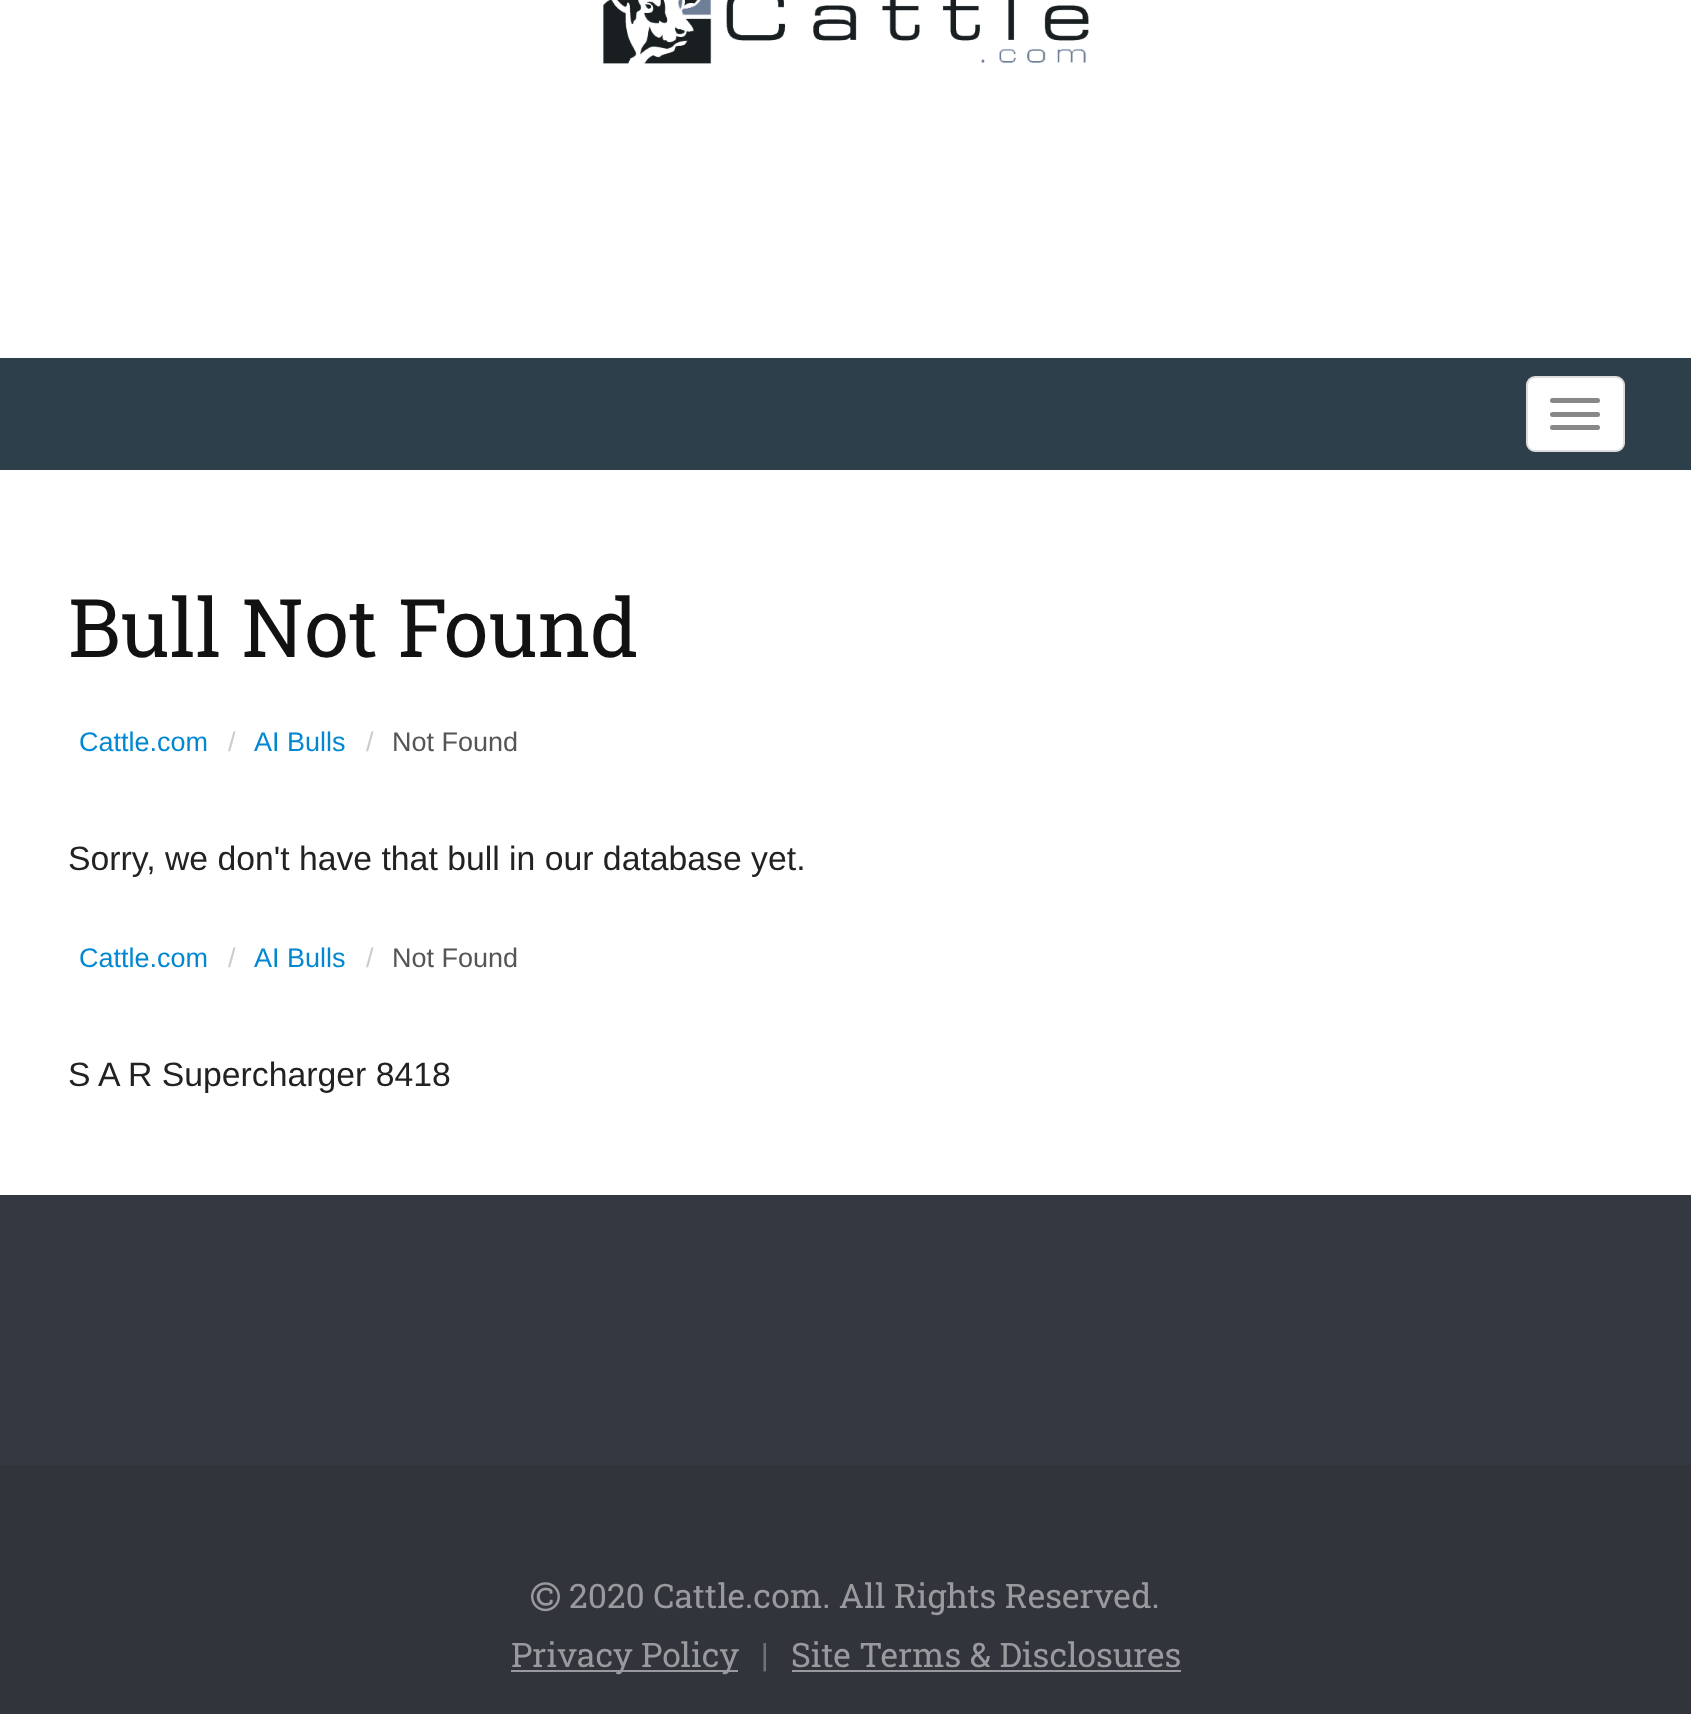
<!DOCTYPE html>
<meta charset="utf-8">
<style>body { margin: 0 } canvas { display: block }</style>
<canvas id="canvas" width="1691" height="1714"></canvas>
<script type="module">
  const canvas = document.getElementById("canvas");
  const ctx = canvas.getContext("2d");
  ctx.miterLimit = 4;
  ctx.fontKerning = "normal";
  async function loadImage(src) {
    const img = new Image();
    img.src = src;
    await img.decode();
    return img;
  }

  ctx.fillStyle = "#ffffff";
  ctx.fillRect(0, 0, 1691, 1714);
  ctx.drawImage(await loadImage("img1.png"), 603, 0, 486, 64);
  ctx.fillStyle = "#2d3f4b";
  ctx.fillRect(0, 358, 1691, 112);
  ctx.fillStyle = "#ffffff";
  ctx.beginPath();
  ctx.roundRect(1527, 377, 97, 74, 8);
  ctx.fill();
  ctx.strokeStyle = "#dddddd";
  ctx.lineWidth = 2;
  ctx.stroke();
  ctx.fillStyle = "#888888";
  ctx.beginPath();
  ctx.roundRect(1550, 398, 50, 5, 2.5);
  ctx.fill();
  ctx.beginPath();
  ctx.roundRect(1550, 412, 50, 5, 2.5);
  ctx.fill();
  ctx.beginPath();
  ctx.roundRect(1550, 425, 50, 5, 2.5);
  ctx.fill();
  ctx.font = "81px Roboto Slab";
  ctx.fillStyle = "#121212";
  ctx.fillText("Bull Not Found", 68, 657);
  ctx.font = "27px Liberation Sans";
  ctx.fillStyle = "#0288d1";
  ctx.fillText("Cattle.com", 79, 751);
  ctx.fillStyle = "#cccccc";
  ctx.fillText("/", 228, 751);
  ctx.fillStyle = "#0288d1";
  ctx.fillText("AI Bulls", 254, 751);
  ctx.fillStyle = "#cccccc";
  ctx.fillText("/", 366, 751);
  ctx.fillStyle = "#555555";
  ctx.fillText("Not Found", 392, 751);
  ctx.font = "33.75px Liberation Sans";
  ctx.fillStyle = "#222222";
  ctx.fillText("Sorry, we don't have that bull in our database yet.", 68, 870);
  ctx.font = "27px Liberation Sans";
  ctx.fillStyle = "#0288d1";
  ctx.fillText("Cattle.com", 79, 967);
  ctx.fillStyle = "#cccccc";
  ctx.fillText("/", 228, 967);
  ctx.fillStyle = "#0288d1";
  ctx.fillText("AI Bulls", 254, 967);
  ctx.fillStyle = "#cccccc";
  ctx.fillText("/", 366, 967);
  ctx.fillStyle = "#555555";
  ctx.fillText("Not Found", 392, 967);
  ctx.font = "33.75px Liberation Sans";
  ctx.fillStyle = "#222222";
  ctx.fillText("S A R Supercharger 8418", 68, 1086);
  ctx.fillStyle = "#343840";
  ctx.fillRect(0, 1195, 1691, 270);
  ctx.fillStyle = "#31343b";
  ctx.fillRect(0, 1465, 1691, 249);
  ctx.drawImage(await loadImage("img2.png"), 531, 1582, 29, 30);
  ctx.font = "33.75px Roboto Slab";
  ctx.fillStyle = "#989a9d";
  ctx.fillText("2020 Cattle.com. All Rights Reserved.", 569, 1608);
  ctx.fillRect(511, 1670, 227, 2);
  ctx.fillText("Privacy Policy", 511, 1667);
  ctx.fillStyle = "#6f7176";
  ctx.fillText("|", 761, 1667);
  ctx.fillStyle = "#989a9d";
  ctx.fillText("Site Terms & Disclosures", 791, 1667);
  ctx.fillRect(792, 1670, 389, 2);
</script>
